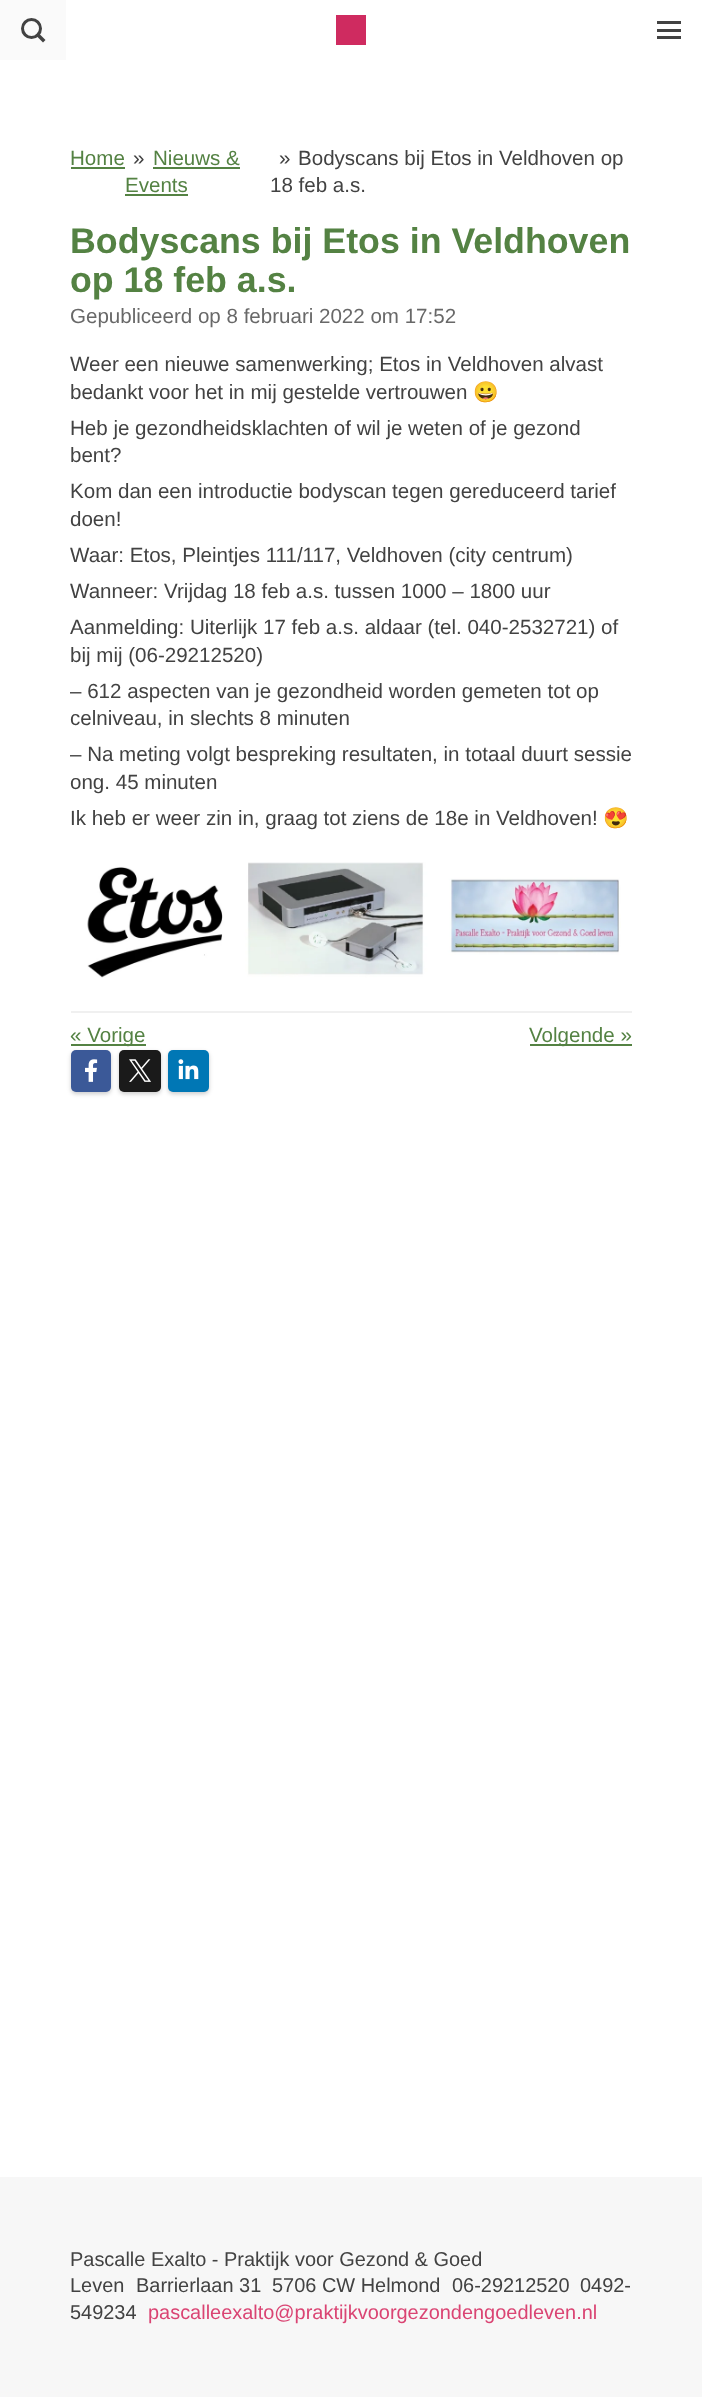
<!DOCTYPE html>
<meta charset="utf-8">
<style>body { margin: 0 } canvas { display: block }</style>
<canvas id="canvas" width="702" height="2397"></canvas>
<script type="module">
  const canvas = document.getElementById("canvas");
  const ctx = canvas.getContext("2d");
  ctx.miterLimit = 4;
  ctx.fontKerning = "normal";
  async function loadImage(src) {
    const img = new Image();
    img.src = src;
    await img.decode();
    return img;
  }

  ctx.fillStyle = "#ffffff";
  ctx.fillRect(0, 0, 702, 2397);
  ctx.fillStyle = "#fafafa";
  ctx.fillRect(0, 0, 66, 60);
  ctx.beginPath();
  ctx.arc(31.5, 28.5, 9, 0, Math.PI * 2);
  ctx.strokeStyle = "#424242";
  ctx.lineWidth = 3;
  ctx.stroke();
  ctx.fillStyle = "#424242";
  ctx.beginPath();
  ctx.moveTo(38, 32.5);
  ctx.lineTo(45.5, 40);
  ctx.lineTo(43, 42.5);
  ctx.lineTo(35.5, 35);
  ctx.closePath();
  ctx.fill();
  ctx.fillStyle = "#cf2b60";
  ctx.fillRect(336, 15, 30, 30);
  ctx.fillStyle = "#424242";
  ctx.fillRect(657, 29, 24, 3);
  ctx.fillRect(657, 21, 24, 3);
  ctx.fillRect(657, 36, 24, 3);
  ctx.font = "20.55px Liberation Sans";
  ctx.fillStyle = "#548243";
  ctx.fillText("Home", 70, 165);
  ctx.fillRect(71, 167, 54, 2);
  ctx.fillStyle = "#424242";
  ctx.fillText("»", 133, 165);
  ctx.fillStyle = "#548243";
  ctx.fillText("Nieuws &", 153, 165);
  ctx.fillRect(153, 167, 87, 2);
  ctx.fillText("Events", 125, 192);
  ctx.fillRect(125, 194, 63, 2);
  ctx.fillStyle = "#424242";
  ctx.fillText("»", 279, 165);
  ctx.fillText("Bodyscans bij Etos in Veldhoven op", 298, 165);
  ctx.fillText("18 feb a.s.", 270, 192);
  ctx.font = "bold 35.75px Liberation Sans";
  ctx.fillStyle = "#548243";
  ctx.fillText("Bodyscans bij Etos in Veldhoven", 70, 253);
  ctx.fillText("op 18 feb a.s.", 70, 292);
  ctx.font = "20.55px Liberation Sans";
  ctx.fillStyle = "#686868";
  ctx.fillText("Gepubliceerd op 8 februari 2022 om 17:52", 70, 323);
  ctx.fillStyle = "#424242";
  ctx.fillText("Weer een nieuwe samenwerking; Etos in Veldhoven alvast", 70, 371);
  ctx.fillText("bedankt voor het in mij gestelde vertrouwen", 70, 399);
  ctx.font = "20.55px Noto Color Emoji";
  ctx.fillText("😀", 473, 399);
  ctx.font = "20.55px Liberation Sans";
  ctx.fillText("Heb je gezondheidsklachten of wil je weten of je gezond", 70, 435);
  ctx.fillText("bent?", 70, 462);
  ctx.fillText("Kom dan een introductie bodyscan tegen gereduceerd tarief", 70, 498);
  ctx.fillText("doen!", 70, 526);
  ctx.fillText("Waar: Etos, Pleintjes 111/117, Veldhoven (city centrum)", 70, 562);
  ctx.fillText("Wanneer: Vrijdag 18 feb a.s. tussen 1000 – 1800 uur", 70, 598);
  ctx.fillText("Aanmelding: Uiterlijk 17 feb a.s. aldaar (tel. 040-2532721) of", 70, 634);
  ctx.fillText("bij mij (06-29212520)", 70, 662);
  ctx.fillText("– 612 aspecten van je gezondheid worden gemeten tot op", 70, 698);
  ctx.fillText("celniveau, in slechts 8 minuten", 70, 725);
  ctx.fillText("– Na meting volgt bespreking resultaten, in totaal duurt sessie", 70, 761);
  ctx.fillText("ong. 45 minuten", 70, 789);
  ctx.fillText("Ik heb er weer zin in, graag tot ziens de 18e in Veldhoven!", 70, 825);
  ctx.font = "20.55px Noto Color Emoji";
  ctx.fillText("😍", 603, 825);
  ctx.drawImage(await loadImage("img1.png"), 87, 862, 534, 116);
  ctx.fillStyle = "#f0f0f0";
  ctx.fillRect(71, 1011, 561, 2);
  ctx.fillStyle = "#548243";
  ctx.fillRect(71, 1044, 75, 2);
  ctx.font = "20.55px Liberation Sans";
  ctx.fillText("« Vorige", 70, 1042);
  ctx.fillRect(530, 1044, 102, 2);
  ctx.fillText("Volgende »", 529, 1042);
  ctx.fillStyle = "rgba(0, 0, 0, 0.2)";
  ctx.filter = "blur(2px)";
  ctx.beginPath();
  ctx.roundRect(71, 1052, 40, 42, 5);
  ctx.fill();
  ctx.filter = "none";
  ctx.fillStyle = "#3b5998";
  ctx.beginPath();
  ctx.roundRect(71, 1050, 40, 42, 5);
  ctx.fill();
  ctx.drawImage(await loadImage("img2.png"), 85, 1059, 13, 23);
  ctx.fillStyle = "rgba(0, 0, 0, 0.2)";
  ctx.filter = "blur(2px)";
  ctx.beginPath();
  ctx.roundRect(119, 1052, 42, 42, 5);
  ctx.fill();
  ctx.filter = "none";
  ctx.fillStyle = "#1a1a1a";
  ctx.beginPath();
  ctx.roundRect(119, 1050, 42, 42, 5);
  ctx.fill();
  ctx.drawImage(await loadImage("img3.png"), 129, 1059, 22, 23);
  ctx.fillStyle = "rgba(0, 0, 0, 0.2)";
  ctx.filter = "blur(2px)";
  ctx.beginPath();
  ctx.roundRect(168, 1052, 41, 42, 5);
  ctx.fill();
  ctx.filter = "none";
  ctx.fillStyle = "#0077b5";
  ctx.beginPath();
  ctx.roundRect(168, 1050, 41, 42, 5);
  ctx.fill();
  ctx.drawImage(await loadImage("img4.png"), 178, 1059, 21, 21);
  ctx.fillStyle = "#f7f7f7";
  ctx.fillRect(0, 2177, 702, 220);
  ctx.font = "19.95px Liberation Sans";
  ctx.fillStyle = "#424242";
  ctx.fillText("Pascalle Exalto - Praktijk voor Gezond & Goed", 70, 2266);
  ctx.fillText("Leven", 70, 2292);
  ctx.fillText("Barrierlaan 31", 136, 2292);
  ctx.fillText("5706 CW Helmond", 272, 2292);
  ctx.fillText("06-29212520", 452, 2292);
  ctx.fillText("0492-", 580, 2292);
  ctx.fillText("549234", 70, 2319);
  ctx.fillStyle = "#da4473";
  ctx.fillText("pascalleexalto@praktijkvoorgezondengoedleven.nl", 148, 2319);
</script>
